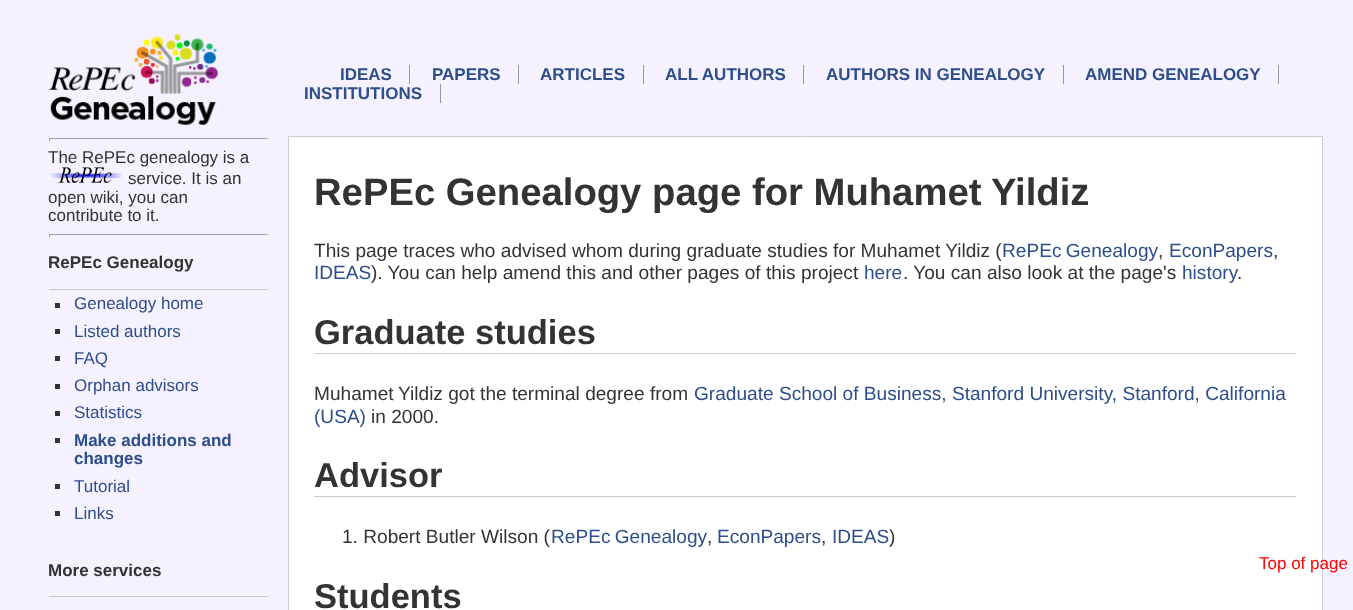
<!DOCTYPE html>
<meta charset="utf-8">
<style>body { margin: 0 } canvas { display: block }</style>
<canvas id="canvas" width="1353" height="610"></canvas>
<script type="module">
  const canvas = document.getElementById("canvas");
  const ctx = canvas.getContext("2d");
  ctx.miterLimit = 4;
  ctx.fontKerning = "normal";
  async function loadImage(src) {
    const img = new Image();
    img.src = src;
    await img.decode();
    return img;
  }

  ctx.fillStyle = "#f6f1fe";
  ctx.fillRect(0, 0, 1353, 610);
  ctx.drawImage(await loadImage("img1.png"), 48, 34, 170, 91);
  ctx.fillStyle = "#9f9f9f";
  ctx.fillRect(49, 138, 219, 1);
  ctx.fillStyle = "#eeeeee";
  ctx.fillRect(266, 138, 1, 3);
  ctx.fillRect(49, 139, 219, 1);
  ctx.fillStyle = "#9f9f9f";
  ctx.fillRect(49, 138, 1, 3);
  ctx.font = "17px Liberation Sans";
  ctx.fillStyle = "#333333";
  ctx.fillText("The RePEc genealogy is a", 48, 163);
  ctx.drawImage(await loadImage("img2.png"), 50, 167, 72, 16);
  ctx.fillText("service. It is an", 128, 184);
  ctx.fillText("open wiki, you can", 48, 203);
  ctx.fillText("contribute to it.", 48, 221);
  ctx.fillStyle = "#9f9f9f";
  ctx.fillRect(49, 234, 219, 1);
  ctx.fillStyle = "#eeeeee";
  ctx.fillRect(266, 234, 1, 3);
  ctx.fillRect(49, 235, 219, 1);
  ctx.fillStyle = "#9f9f9f";
  ctx.fillRect(49, 234, 1, 3);
  ctx.font = "bold 17px Liberation Sans";
  ctx.fillStyle = "#333333";
  ctx.fillText("RePEc Genealogy", 48, 268);
  ctx.fillStyle = "#cccccc";
  ctx.fillRect(49, 289, 219, 1);
  ctx.fillStyle = "#333333";
  ctx.fillRect(55, 303, 5, 5);
  ctx.font = "17px Liberation Sans";
  ctx.fillStyle = "#2d4e8b";
  ctx.fillText("Genealogy home", 74, 309);
  ctx.fillStyle = "#333333";
  ctx.fillRect(55, 329, 5, 5);
  ctx.fillStyle = "#2d4e8b";
  ctx.fillText("Listed authors", 74, 337);
  ctx.fillStyle = "#333333";
  ctx.fillRect(55, 356, 5, 5);
  ctx.fillStyle = "#2d4e8b";
  ctx.fillText("FAQ", 74, 364);
  ctx.fillStyle = "#333333";
  ctx.fillRect(55, 384, 5, 5);
  ctx.fillStyle = "#2d4e8b";
  ctx.fillText("Orphan advisors", 74, 391);
  ctx.fillStyle = "#333333";
  ctx.fillRect(55, 411, 5, 5);
  ctx.fillStyle = "#2d4e8b";
  ctx.fillText("Statistics", 74, 418);
  ctx.fillStyle = "#333333";
  ctx.fillRect(55, 438, 5, 5);
  ctx.font = "bold 17px Liberation Sans";
  ctx.fillStyle = "#2d4e8b";
  ctx.fillText("Make additions and", 74, 446);
  ctx.fillText("changes", 74, 464);
  ctx.fillStyle = "#333333";
  ctx.fillRect(55, 484, 5, 5);
  ctx.font = "17px Liberation Sans";
  ctx.fillStyle = "#2d4e8b";
  ctx.fillText("Tutorial", 74, 492);
  ctx.fillStyle = "#333333";
  ctx.fillRect(55, 511, 5, 5);
  ctx.fillStyle = "#2d4e8b";
  ctx.fillText("Links", 74, 519);
  ctx.font = "bold 17px Liberation Sans";
  ctx.fillStyle = "#333333";
  ctx.fillText("More services", 48, 576);
  ctx.fillStyle = "#cccccc";
  ctx.fillRect(49, 596, 219, 1);
  ctx.fillStyle = "#999999";
  ctx.fillRect(409, 65, 1, 19);
  ctx.fillStyle = "#2d4e8b";
  ctx.fillText("IDEAS", 340, 80);
  ctx.fillStyle = "#999999";
  ctx.fillRect(518, 65, 1, 19);
  ctx.fillStyle = "#2d4e8b";
  ctx.fillText("PAPERS", 432, 80);
  ctx.fillStyle = "#999999";
  ctx.fillRect(643, 65, 1, 19);
  ctx.fillStyle = "#2d4e8b";
  ctx.fillText("ARTICLES", 540, 80);
  ctx.fillStyle = "#999999";
  ctx.fillRect(803, 65, 1, 19);
  ctx.fillStyle = "#2d4e8b";
  ctx.fillText("ALL AUTHORS", 665, 80);
  ctx.fillStyle = "#999999";
  ctx.fillRect(1063, 65, 1, 19);
  ctx.fillStyle = "#2d4e8b";
  ctx.fillText("AUTHORS IN GENEALOGY", 826, 80);
  ctx.fillStyle = "#999999";
  ctx.fillRect(1278, 65, 1, 19);
  ctx.fillStyle = "#2d4e8b";
  ctx.fillText("AMEND GENEALOGY", 1085, 80);
  ctx.fillStyle = "#999999";
  ctx.fillRect(440, 84, 1, 19);
  ctx.fillStyle = "#2d4e8b";
  ctx.fillText("INSTITUTIONS", 304, 99);
  ctx.fillStyle = "#ffffff";
  ctx.beginPath();
  ctx.rect(288.5, 136.5, 1034, 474);
  ctx.fill();
  ctx.strokeStyle = "#cccccc";
  ctx.stroke();
  ctx.font = "17px Liberation Sans";
  ctx.fillStyle = "#ff0000";
  ctx.fillText("Top of page", 1259, 569);
  ctx.font = "bold 38.25px Liberation Sans";
  ctx.fillStyle = "#333333";
  ctx.fillText("RePEc Genealogy page for Muhamet", 314, 205);
  ctx.fillText("Yildiz", 991, 205);
  ctx.font = "19.1px Liberation Sans";
  ctx.fillText("This page traces who advised whom during graduate studies for Muhamet Yildiz (", 314, 257);
  ctx.wordSpacing = "-1px";
  ctx.fillStyle = "#2d4e8b";
  ctx.fillText("RePEc Genealogy", 1002, 257);
  ctx.wordSpacing = "0px";
  ctx.fillStyle = "#333333";
  ctx.fillText(",", 1158, 257);
  ctx.fillStyle = "#2d4e8b";
  ctx.fillText("EconPapers", 1169, 257);
  ctx.fillStyle = "#333333";
  ctx.fillText(",", 1273, 257);
  ctx.fillStyle = "#2d4e8b";
  ctx.fillText("IDEAS", 314, 279);
  ctx.fillStyle = "#333333";
  ctx.fillText("). You can help amend this and other pages of this project", 371, 279);
  ctx.fillStyle = "#2d4e8b";
  ctx.fillText("here", 864, 279);
  ctx.fillStyle = "#333333";
  ctx.fillText(". You can also look at the page's", 903, 279);
  ctx.fillStyle = "#2d4e8b";
  ctx.fillText("history", 1182, 279);
  ctx.fillStyle = "#333333";
  ctx.fillText(".", 1237, 279);
  ctx.fillStyle = "#cccccc";
  ctx.fillRect(314, 353, 982, 1);
  ctx.font = "bold 34.5px Liberation Sans";
  ctx.fillStyle = "#333333";
  ctx.fillText("Graduate studies", 314, 344);
  ctx.font = "19.1px Liberation Sans";
  ctx.fillText("Muhamet", 314, 400);
  ctx.fillText("Yildiz got the terminal degree from", 398, 400);
  ctx.fillStyle = "#2d4e8b";
  ctx.fillText("Graduate School of Business, Stanford University, Stanford, California", 694, 400);
  ctx.fillText("(USA)", 314, 423);
  ctx.fillStyle = "#333333";
  ctx.fillText("in 2000.", 371, 423);
  ctx.fillStyle = "#cccccc";
  ctx.fillRect(314, 496, 982, 1);
  ctx.font = "bold 34.5px Liberation Sans";
  ctx.fillStyle = "#333333";
  ctx.fillText("Advisor", 314, 487);
  ctx.font = "19.1px Liberation Sans";
  ctx.fillText("1. Robert Butler Wilson (", 342, 543);
  ctx.wordSpacing = "-1px";
  ctx.fillStyle = "#2d4e8b";
  ctx.fillText("RePEc Genealogy", 551, 543);
  ctx.wordSpacing = "0px";
  ctx.fillStyle = "#333333";
  ctx.fillText(",", 707, 543);
  ctx.fillStyle = "#2d4e8b";
  ctx.fillText("EconPapers", 717, 543);
  ctx.fillStyle = "#333333";
  ctx.fillText(",", 821, 543);
  ctx.fillStyle = "#2d4e8b";
  ctx.fillText("IDEAS", 832, 543);
  ctx.fillStyle = "#333333";
  ctx.fillText(")", 889, 543);
  ctx.font = "bold 34.5px Liberation Sans";
  ctx.fillText("Students", 314, 608);
</script>
